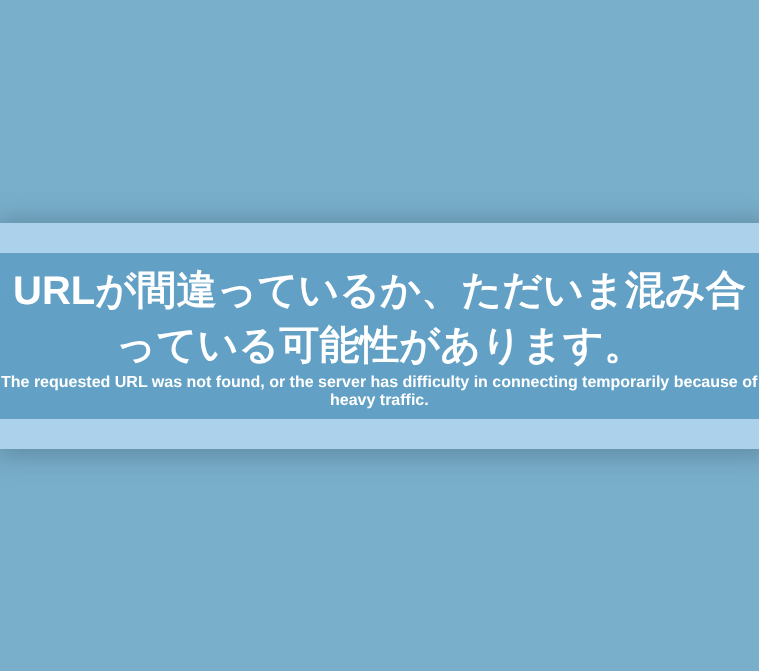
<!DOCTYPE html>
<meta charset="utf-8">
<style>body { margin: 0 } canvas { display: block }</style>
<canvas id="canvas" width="759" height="671"></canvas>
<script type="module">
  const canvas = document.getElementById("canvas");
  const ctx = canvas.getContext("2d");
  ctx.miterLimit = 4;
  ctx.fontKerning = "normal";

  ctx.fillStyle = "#79afcb";
  ctx.fillRect(0, 0, 759, 671);
  ctx.fillStyle = "#628ea8";
  ctx.filter = "blur(12px)";
  ctx.beginPath();
  ctx.rect(-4, 218, 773, 240);
  ctx.fill();
  ctx.filter = "none";
  ctx.fillStyle = "#abd2ea";
  ctx.fillRect(0, 223, 759, 226);
  ctx.fillStyle = "#62a1c5";
  ctx.fillRect(0, 253, 759, 166);
  ctx.font = "bold 40px Liberation Sans";
  ctx.fillStyle = "#ffffff";
  ctx.fillText("URL", 13, 304);
  ctx.font = "bold 40px WenQuanYi Zen Hei";
  ctx.fillText("が間違っているか、ただいま混み合", 95, 304);
  ctx.fillText("っている可能性があります。", 115, 359);
  ctx.font = "bold 16px Liberation Sans";
  ctx.fillText("The requested URL was not found, or the server has difficulty in connecting temporarily because of", 1, 387);
  ctx.fillText("heavy traffic.", 330, 405);
</script>
